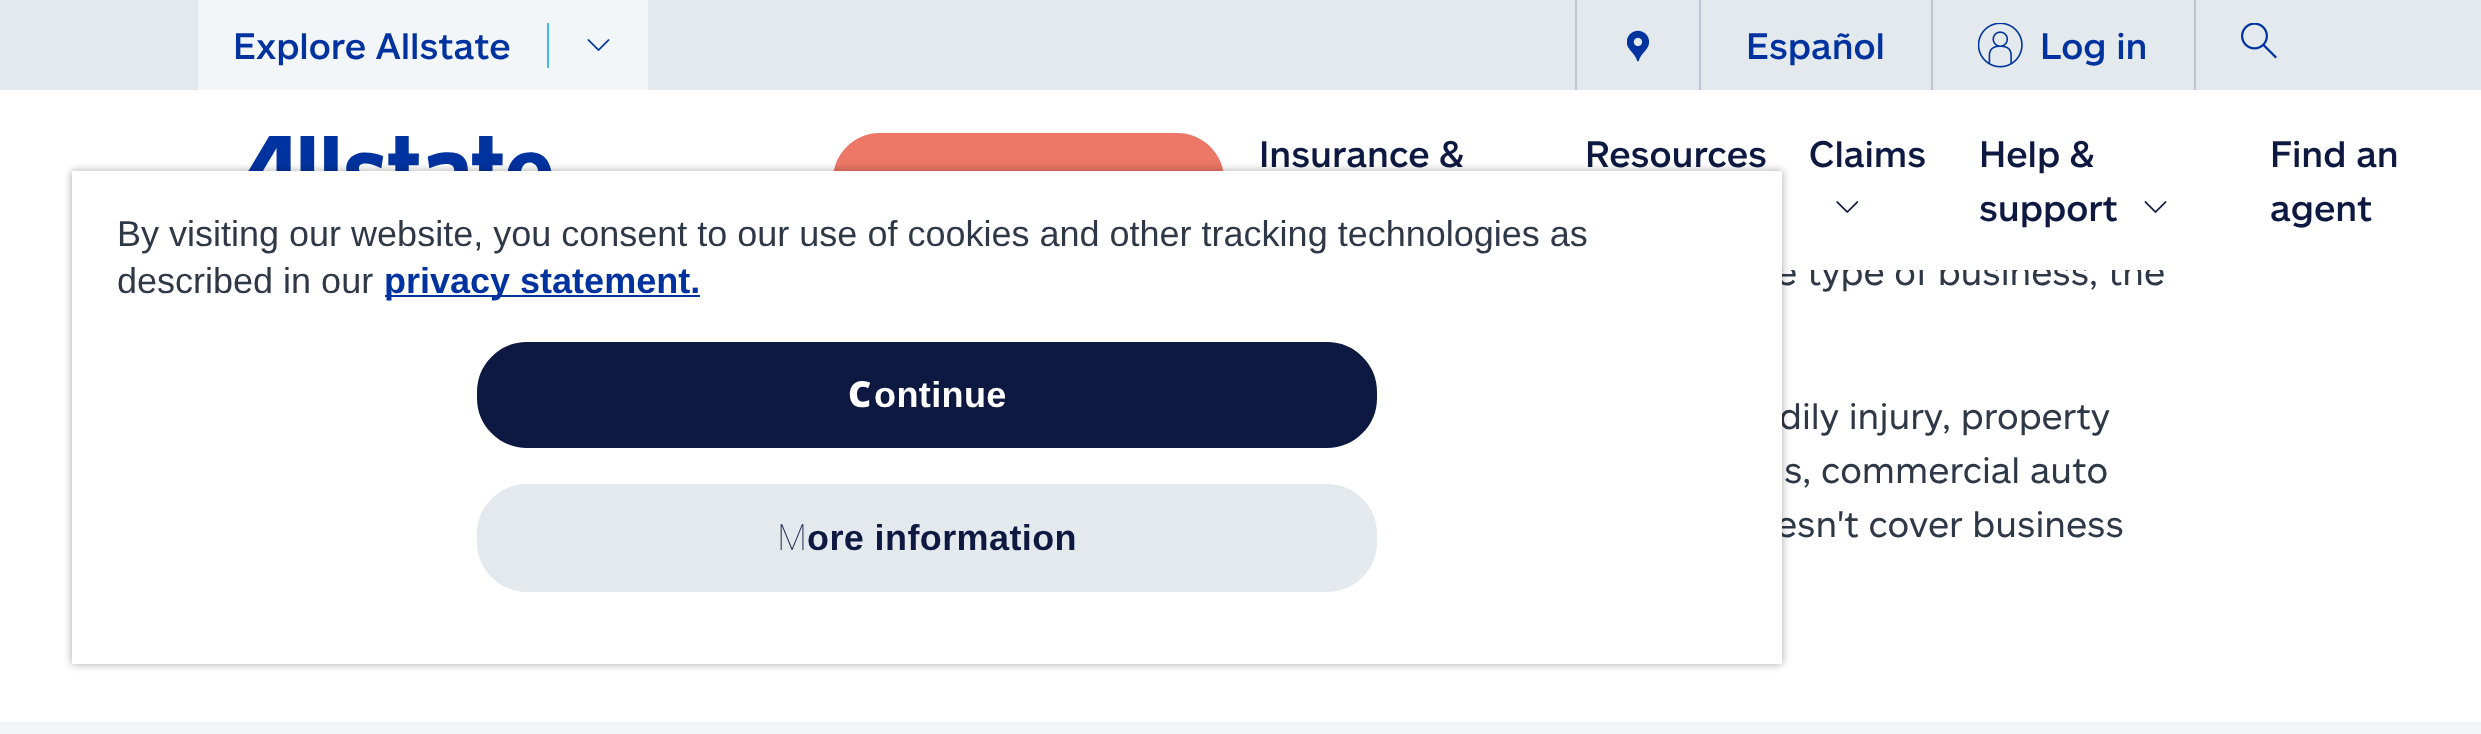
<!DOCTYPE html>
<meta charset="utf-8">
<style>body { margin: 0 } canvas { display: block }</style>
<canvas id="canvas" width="2481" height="734"></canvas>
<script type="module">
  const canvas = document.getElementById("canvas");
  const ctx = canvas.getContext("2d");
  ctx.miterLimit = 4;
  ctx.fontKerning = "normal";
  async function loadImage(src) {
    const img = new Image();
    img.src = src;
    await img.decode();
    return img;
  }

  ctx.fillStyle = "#ffffff";
  ctx.fillRect(0, 0, 2481, 734);
  ctx.fillStyle = "#e4e9ed";
  ctx.fillRect(0, 0, 2481, 90);
  ctx.fillStyle = "#f3f6f9";
  ctx.fillRect(198, 0, 450, 90);
  ctx.font = "500 36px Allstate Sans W";
  ctx.fillStyle = "#0033a0";
  ctx.fillText("Explore Allstate", 233, 59);
  ctx.fillStyle = "#45bce5";
  ctx.fillRect(547, 23, 2, 45);
  ctx.drawImage(await loadImage("img1.png"), 587, 39, 23, 12);
  ctx.fillStyle = "#bac6d3";
  ctx.fillRect(1575, 0, 2, 90);
  ctx.drawImage(await loadImage("img2.png"), 1627, 30, 22, 32);
  ctx.fillRect(1699, 0, 2, 90);
  ctx.fillStyle = "#0033a0";
  ctx.fillText("Español", 1746, 59);
  ctx.fillStyle = "#bac6d3";
  ctx.fillRect(1931, 0, 2, 90);
  ctx.drawImage(await loadImage("img3.png"), 1978, 23, 45, 45);
  ctx.fillStyle = "#0033a0";
  ctx.fillText("Log in", 2040, 59);
  ctx.fillStyle = "#bac6d3";
  ctx.fillRect(2194, 0, 2, 90);
  ctx.drawImage(await loadImage("img4.png"), 2241, 23, 36, 36);
  ctx.font = "36px Allstate Sans W";
  ctx.fillStyle = "#2f3847";
  ctx.fillText("e type of business, the", 1776, 285);
  ctx.fillStyle = "#ffffff";
  ctx.fillRect(1779, 258, 384, 12);
  ctx.drawImage(await loadImage("img5.png"), 248, 136, 304, 35);
  ctx.fillStyle = "#ed7766";
  ctx.beginPath();
  ctx.roundRect(834, 134, 389, 92, 46);
  ctx.fill();
  ctx.strokeStyle = "#ed7766";
  ctx.lineWidth = 2;
  ctx.stroke();
  ctx.font = "500 36px Allstate Sans W";
  ctx.fillStyle = "#0e1941";
  ctx.fillText("Insurance &", 1259, 167);
  ctx.fillText("Resources", 1585, 167);
  ctx.fillText("Claims", 1809, 167);
  ctx.drawImage(await loadImage("img6.png"), 1836, 201, 23, 12);
  ctx.fillText("Help &", 1979, 167);
  ctx.fillText("support", 1979, 221);
  ctx.drawImage(await loadImage("img7.png"), 2144, 201, 23, 12);
  ctx.fillText("Find an", 2270, 167);
  ctx.fillText("agent", 2270, 221);
  ctx.font = "36px Allstate Sans W";
  ctx.fillStyle = "#2f3847";
  ctx.fillText("dily injury, property", 1779, 429);
  ctx.fillText("s, commercial auto", 1784, 483);
  ctx.fillText("esn't cover business", 1776, 537);
  ctx.fillStyle = "#f3f6f9";
  ctx.fillRect(0, 722, 2481, 12);
  ctx.fillStyle = "rgba(0, 0, 0, 0.35)";
  ctx.filter = "blur(4.5px)";
  ctx.beginPath();
  ctx.rect(72, 171, 1710, 493);
  ctx.fill();
  ctx.filter = "none";
  ctx.fillStyle = "#ffffff";
  ctx.fillRect(72, 171, 1710, 493);
  ctx.font = "36px Liberation Sans";
  ctx.fillStyle = "#2f3847";
  ctx.fillText("By visiting our website, you consent to our use of cookies and other tracking technologies as", 117, 246);
  ctx.fillText("described in our", 117, 293);
  ctx.fillStyle = "#0033a0";
  ctx.fillRect(385, 295, 315, 2);
  ctx.font = "bold 36px Liberation Sans";
  ctx.fillText("privacy statement.", 384, 293);
  ctx.fillStyle = "#0e1941";
  ctx.beginPath();
  ctx.roundRect(478, 343, 898, 104, 49);
  ctx.fill();
  ctx.strokeStyle = "#0e1941";
  ctx.stroke();
  ctx.letterSpacing = "0.4px";
  ctx.font = "900 36px Noto Sans";
  ctx.fillStyle = "#ffffff";
  ctx.fillText("C", 848, 407);
  ctx.font = "bold 36px Liberation Sans";
  ctx.fillText("ontinue", 874, 407);
  ctx.fillStyle = "#e4e9ed";
  ctx.beginPath();
  ctx.roundRect(478, 485, 898, 106, 49);
  ctx.fill();
  ctx.strokeStyle = "#e4e9ed";
  ctx.stroke();
  ctx.font = "100 36px Noto Sans";
  ctx.fillStyle = "#0e1941";
  ctx.fillText("M", 777, 550);
  ctx.font = "bold 36px Liberation Sans";
  ctx.fillText("ore information", 807, 550);
</script>
